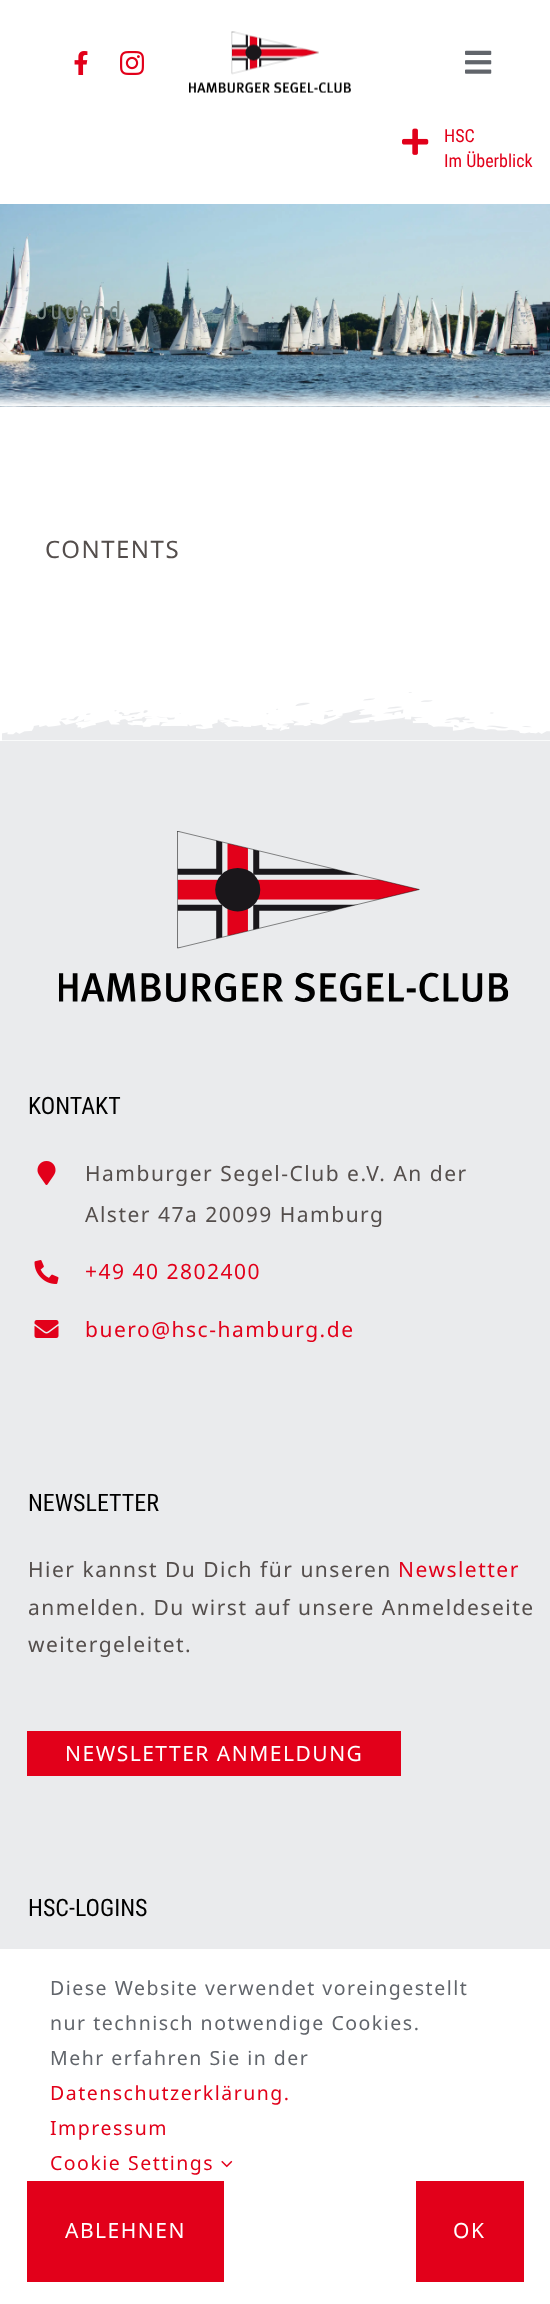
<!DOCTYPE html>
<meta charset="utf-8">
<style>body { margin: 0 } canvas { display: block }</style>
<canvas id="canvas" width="550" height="2304"></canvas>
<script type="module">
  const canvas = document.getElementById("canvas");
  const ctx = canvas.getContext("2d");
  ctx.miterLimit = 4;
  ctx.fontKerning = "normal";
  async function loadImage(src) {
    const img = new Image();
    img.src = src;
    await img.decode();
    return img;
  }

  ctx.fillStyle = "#ffffff";
  ctx.fillRect(0, 0, 550, 2304);
  ctx.drawImage(await loadImage("img1.png"), 74, 51, 14, 24);
  ctx.drawImage(await loadImage("img2.png"), 120, 51, 24, 24);
  ctx.drawImage(await loadImage("img3.png"), 189, 31, 162, 62);
  ctx.drawImage(await loadImage("img4.png"), 402, 128, 27, 27);
  ctx.font = "18px Roboto Condensed";
  ctx.fillStyle = "#e2001a";
  ctx.fillText("HSC", 444, 142);
  ctx.fillText("Im Überblick", 444, 167);
  ctx.drawImage(await loadImage("img5.png"), 465, 50, 27, 24);
  ctx.fillStyle = "#f0f1f2";
  ctx.fillRect(0, 406, 550, 1);
  ctx.drawImage(await loadImage("img6.png"), 0, 204, 550, 203);
  ctx.letterSpacing = "3px";
  ctx.font = "24px Roboto Condensed";
  ctx.fillStyle = "#788683";
  ctx.fillText("Jugend", 36, 319);
  ctx.letterSpacing = "1.5px";
  ctx.font = "24px Noto Sans";
  ctx.fillStyle = "#544e4c";
  ctx.fillText("CONTENTS", 45, 558);
  ctx.drawImage(await loadImage("img7.png"), 2, 692, 548, 49);
  ctx.fillStyle = "#eaebed";
  ctx.fillRect(0, 741, 550, 1208);
  ctx.drawImage(await loadImage("img8.png"), 59, 831, 450, 171);
  ctx.letterSpacing = "0px";
  ctx.font = "24px Roboto Condensed";
  ctx.fillStyle = "#000000";
  ctx.fillText("KONTAKT", 28, 1114);
  ctx.drawImage(await loadImage("img9.png"), 37, 1161, 19, 24);
  ctx.letterSpacing = "1.5px";
  ctx.font = "21px Noto Sans";
  ctx.fillStyle = "#544e4c";
  ctx.fillText("Hamburger Segel-Club e.V. An der", 85, 1181);
  ctx.fillText("Alster 47a 20099 Hamburg", 85, 1222);
  ctx.drawImage(await loadImage("img10.png"), 34, 1260, 25, 24);
  ctx.fillStyle = "#e2001a";
  ctx.fillText("+49 40 2802400", 85, 1279);
  ctx.drawImage(await loadImage("img11.png"), 34, 1320, 25, 18);
  ctx.fillText("buero@hsc-hamburg.de", 85, 1337);
  ctx.letterSpacing = "0px";
  ctx.font = "24px Roboto Condensed";
  ctx.fillStyle = "#000000";
  ctx.fillText("NEWSLETTER", 28, 1511);
  ctx.letterSpacing = "1.5px";
  ctx.font = "21px Noto Sans";
  ctx.fillStyle = "#544e4c";
  ctx.fillText("Hier kannst Du Dich für unseren", 28, 1577);
  ctx.fillStyle = "#e2001a";
  ctx.fillText("Newsletter", 398, 1577);
  ctx.fillStyle = "#544e4c";
  ctx.fillText("anmelden. Du wirst auf unsere Anmeldeseite", 28, 1615);
  ctx.fillText("weitergeleitet.", 28, 1652);
  ctx.fillStyle = "#e2001a";
  ctx.fillRect(27, 1731, 374, 45);
  ctx.fillStyle = "#ffffff";
  ctx.fillText("NEWSLETTER ANMELDUNG", 65, 1761);
  ctx.letterSpacing = "0px";
  ctx.font = "24px Roboto Condensed";
  ctx.fillStyle = "#000000";
  ctx.fillText("HSC-LOGINS", 28, 1916);
  ctx.letterSpacing = "1.5px";
  ctx.font = "19.5px Noto Sans";
  ctx.fillStyle = "#61656b";
  ctx.fillText("Diese Website verwendet voreingestellt", 50, 1995);
  ctx.fillText("nur technisch notwendige Cookies.", 50, 2030);
  ctx.fillText("Mehr erfahren Sie in der", 50, 2065);
  ctx.fillStyle = "#e2001a";
  ctx.fillText("Datenschutzerklärung.", 50, 2100);
  ctx.fillText("Impressum", 50, 2135);
  ctx.fillText("Cookie Settings", 50, 2170);
  ctx.drawImage(await loadImage("img12.png"), 221, 2160, 12, 8);
  ctx.fillRect(27, 2181, 197, 101);
  ctx.font = "21px Noto Sans";
  ctx.fillStyle = "#ffffff";
  ctx.fillText("ABLEHNEN", 65, 2238);
  ctx.fillStyle = "#e2001a";
  ctx.fillRect(416, 2181, 108, 101);
  ctx.fillStyle = "#ffffff";
  ctx.fillText("OK", 453, 2238);
</script>
